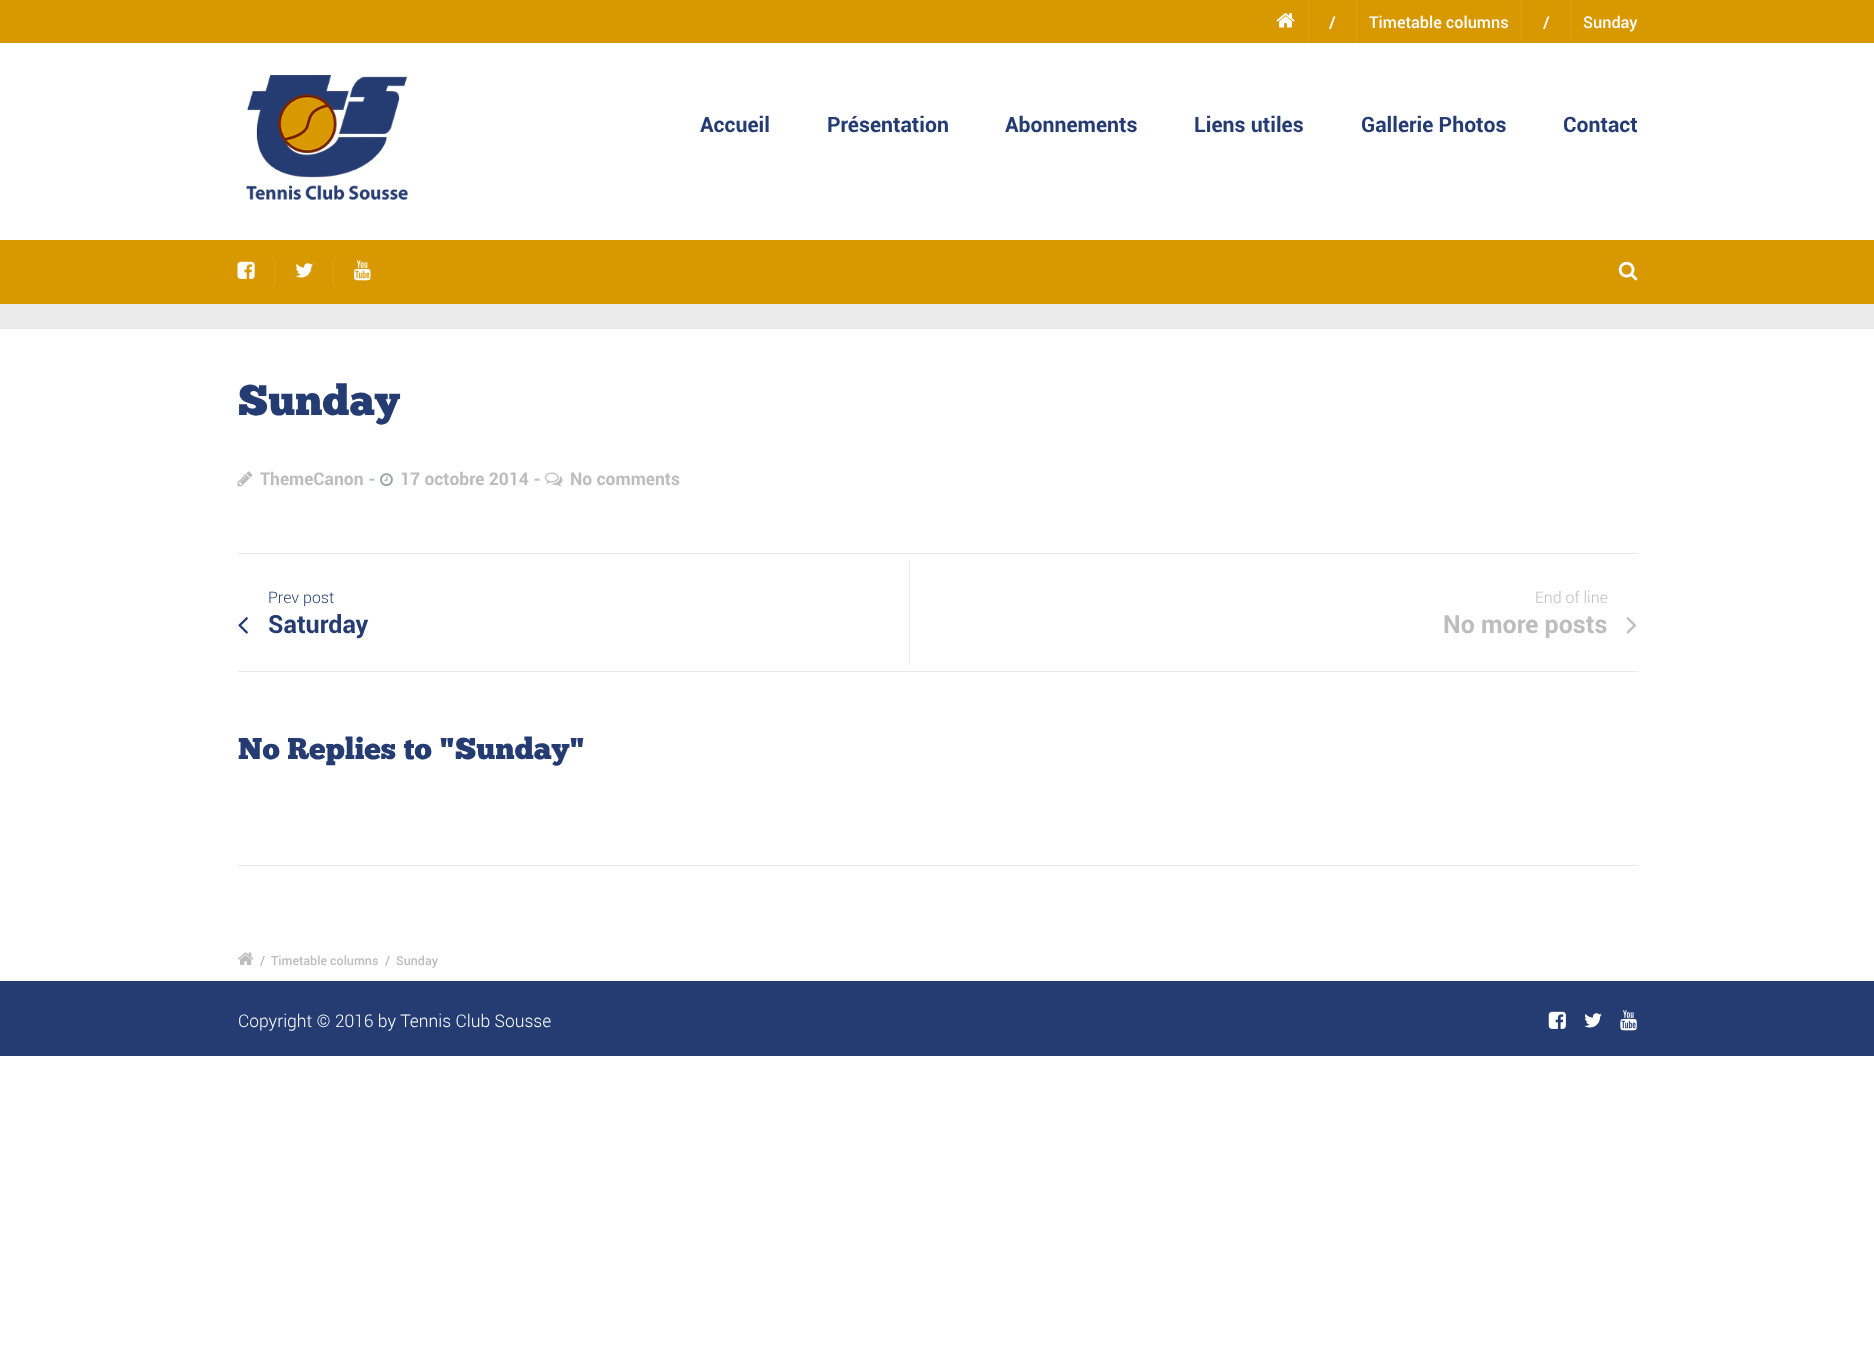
<!DOCTYPE html>
<meta charset="utf-8">
<style>body { margin: 0 } canvas { display: block }</style>
<canvas id="canvas" width="1874" height="1351"></canvas>
<script type="module">
  const canvas = document.getElementById("canvas");
  const ctx = canvas.getContext("2d");
  ctx.miterLimit = 4;
  ctx.fontKerning = "normal";
  async function loadImage(src) {
    const img = new Image();
    img.src = src;
    await img.decode();
    return img;
  }

  ctx.fillStyle = "#ffffff";
  ctx.fillRect(0, 0, 1874, 1351);
  ctx.fillStyle = "#d79800";
  ctx.fillRect(0, 0, 1874, 43);
  ctx.fillStyle = "#dba21a";
  ctx.fillRect(1308, 0, 1, 43);
  ctx.drawImage(await loadImage("img1.png"), 1276, 13, 19, 15);
  ctx.fillRect(1356, 0, 1, 43);
  ctx.font = "500 16.25px Roboto";
  ctx.fillStyle = "#ffffff";
  ctx.fillText("/", 1329, 28);
  ctx.fillStyle = "#dba21a";
  ctx.fillRect(1521, 0, 1, 43);
  ctx.fillStyle = "#ffffff";
  ctx.fillText("Timetable columns", 1369, 28);
  ctx.fillStyle = "#dba21a";
  ctx.fillRect(1570, 0, 1, 43);
  ctx.fillStyle = "#ffffff";
  ctx.fillText("/", 1543, 28);
  ctx.fillText("Sunday", 1583, 28);
  ctx.drawImage(await loadImage("img2.png"), 246, 75, 163, 125);
  ctx.font = "bold 21.25px Roboto";
  ctx.fillStyle = "#253c72";
  ctx.fillText("Accueil", 700, 132);
  ctx.fillText("Présentation", 827, 132);
  ctx.fillText("Abonnements", 1005, 132);
  ctx.fillText("Liens utiles", 1194, 132);
  ctx.fillText("Gallerie Photos", 1361, 132);
  ctx.fillText("Contact", 1563, 132);
  ctx.fillStyle = "#d79800";
  ctx.fillRect(0, 240, 1874, 64);
  ctx.drawImage(await loadImage("img3.png"), 237, 261, 18, 18);
  ctx.fillStyle = "#dba21a";
  ctx.fillRect(274, 260, 1, 25);
  ctx.drawImage(await loadImage("img4.png"), 295, 263, 18, 15);
  ctx.fillRect(333, 260, 1, 25);
  ctx.drawImage(await loadImage("img5.png"), 354, 260, 17, 21);
  ctx.drawImage(await loadImage("img6.png"), 1618, 261, 20, 20);
  ctx.fillStyle = "#eaeaea";
  ctx.fillRect(0, 304, 1874, 25);
  ctx.font = "42.5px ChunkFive";
  ctx.fillStyle = "#253c72";
  ctx.fillText("Sunday", 238, 415);
  ctx.drawImage(await loadImage("img7.png"), 237, 471, 16, 16);
  ctx.font = "bold 17.5px Roboto";
  ctx.fillStyle = "#bdbdbd";
  ctx.fillText("ThemeCanon -", 260, 485);
  ctx.drawImage(await loadImage("img8.png"), 380, 473, 13, 13);
  ctx.fillText("17 octobre 2014 -", 400, 485);
  ctx.drawImage(await loadImage("img9.png"), 545, 472, 18, 15);
  ctx.fillText("No comments", 570, 485);
  ctx.fillStyle = "#eaeaea";
  ctx.fillRect(238, 553, 1400, 1);
  ctx.fillRect(238, 671, 1400, 1);
  ctx.fillRect(909, 560, 1, 105);
  ctx.font = "300 16px Roboto";
  ctx.fillStyle = "#253c72";
  ctx.fillText("Prev post", 268, 603);
  ctx.drawImage(await loadImage("img10.png"), 238, 617, 10, 17);
  ctx.font = "bold 25px Roboto";
  ctx.fillText("Saturday", 268, 633);
  ctx.font = "300 16px Roboto";
  ctx.fillStyle = "#bdbdbd";
  ctx.fillText("End of line", 1535, 603);
  ctx.font = "bold 25px Roboto";
  ctx.fillText("No more posts", 1443, 633);
  ctx.drawImage(await loadImage("img11.png"), 1626, 617, 11, 17);
  ctx.font = "30px ChunkFive";
  ctx.fillStyle = "#253c72";
  ctx.fillText("No Replies to \"Sunday\"", 238, 759);
  ctx.fillStyle = "#eaeaea";
  ctx.fillRect(238, 865, 1400, 1);
  ctx.drawImage(await loadImage("img12.png"), 238, 952, 16, 13);
  ctx.font = "500 12.5px Roboto";
  ctx.fillStyle = "#bdbdbd";
  ctx.fillText("/", 260, 965);
  ctx.fillText("Timetable columns", 271, 965);
  ctx.fillText("/", 385, 965);
  ctx.fillText("Sunday", 396, 965);
  ctx.fillStyle = "#253c72";
  ctx.fillRect(0, 981, 1874, 75);
  ctx.font = "300 17.5px Roboto";
  ctx.fillStyle = "#ffffff";
  ctx.fillText("Copyright © 2016 by Tennis Club Sousse", 238, 1027);
  ctx.drawImage(await loadImage("img13.png"), 1548, 1011, 18, 18);
  ctx.drawImage(await loadImage("img14.png"), 1584, 1013, 18, 15);
  ctx.drawImage(await loadImage("img15.png"), 1620, 1010, 17, 21);
</script>
